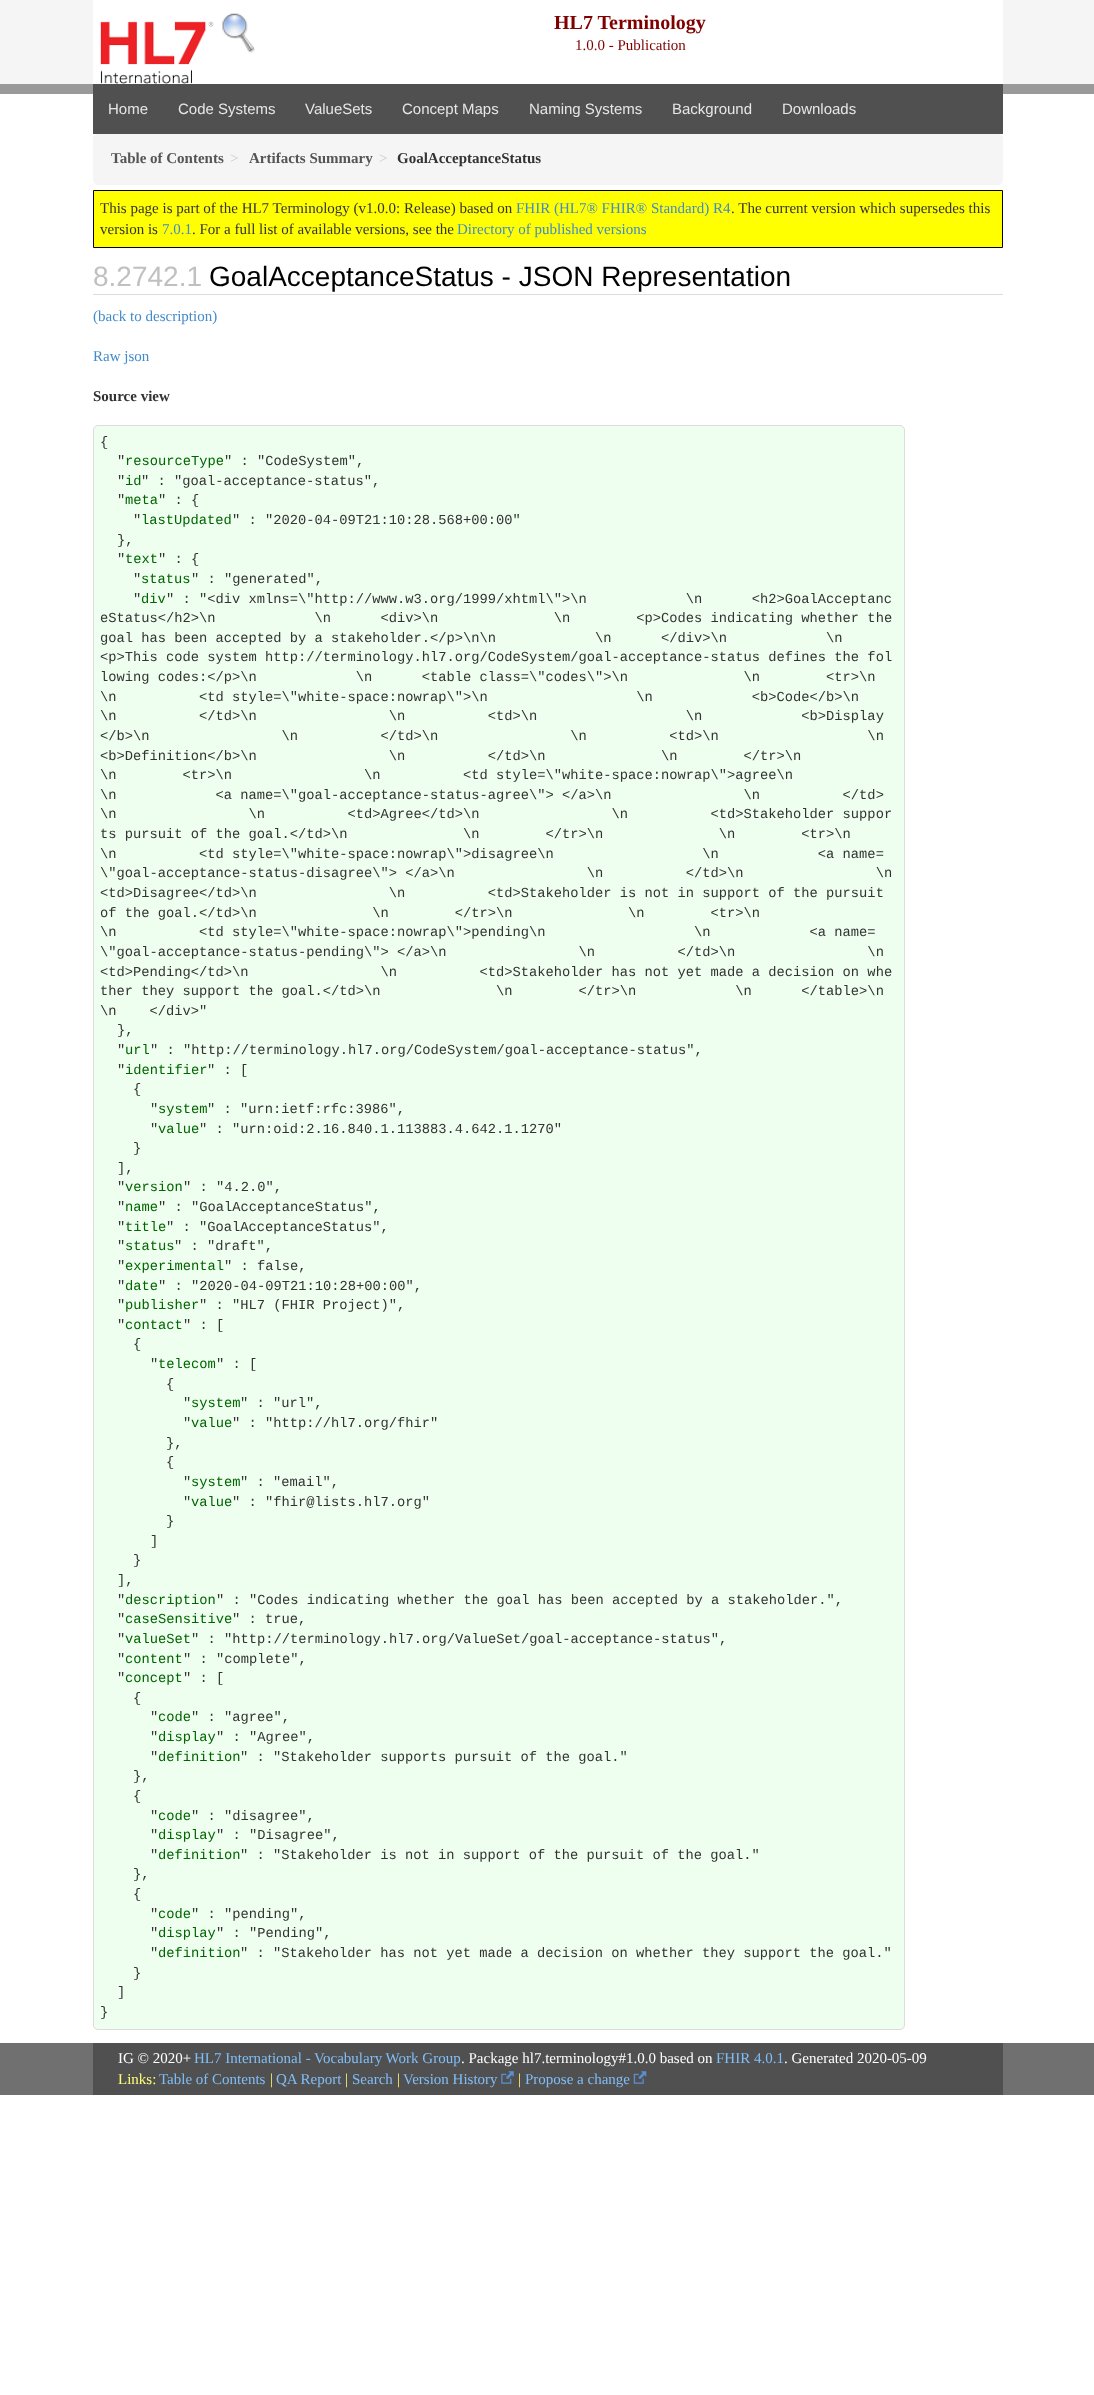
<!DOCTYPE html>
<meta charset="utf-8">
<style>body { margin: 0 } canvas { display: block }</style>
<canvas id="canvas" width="1094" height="2395"></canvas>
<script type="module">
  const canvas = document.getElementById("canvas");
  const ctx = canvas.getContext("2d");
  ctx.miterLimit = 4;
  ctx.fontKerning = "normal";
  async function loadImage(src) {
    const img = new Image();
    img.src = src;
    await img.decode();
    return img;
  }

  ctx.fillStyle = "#ffffff";
  ctx.fillRect(0, 0, 1094, 2395);
  ctx.fillStyle = "#f5f5f5";
  ctx.fillRect(0, 0, 1094, 84);
  ctx.fillStyle = "#ffffff";
  ctx.fillRect(93, 0, 910, 84);
  ctx.drawImage(await loadImage("img1.png"), 100, 21, 114, 63);
  ctx.drawImage(await loadImage("img2.png"), 222, 13, 33, 40);
  ctx.font = "bold 20px Liberation Serif";
  ctx.fillStyle = "#800000";
  ctx.fillText("HL7 Terminology", 554, 29);
  ctx.font = "15px Liberation Serif";
  ctx.fillText("1.0.0 - Publication", 575, 50);
  ctx.fillStyle = "#999999";
  ctx.fillRect(0, 84, 1094, 10);
  ctx.fillStyle = "#505050";
  ctx.fillRect(93, 84, 910, 50);
  ctx.font = "15px Liberation Sans";
  ctx.fillStyle = "#e6e6e6";
  ctx.fillText("Home", 108, 114);
  ctx.fillText("Code Systems", 178, 114);
  ctx.fillText("ValueSets", 305, 114);
  ctx.fillText("Concept Maps", 402, 114);
  ctx.fillText("Naming Systems", 529, 114);
  ctx.fillText("Background", 672, 114);
  ctx.fillText("Downloads", 782, 114);
  ctx.fillStyle = "#f5f5f5";
  ctx.beginPath();
  ctx.roundRect(93, 134, 910, 51, 5);
  ctx.fill();
  ctx.font = "bold 15px Liberation Serif";
  ctx.fillStyle = "#555555";
  ctx.fillText("Table of Contents", 111, 163);
  ctx.font = "15px Liberation Serif";
  ctx.fillStyle = "#cccccc";
  ctx.fillText(">", 230, 163);
  ctx.font = "bold 15px Liberation Serif";
  ctx.fillStyle = "#555555";
  ctx.fillText("Artifacts Summary", 249, 163);
  ctx.font = "15px Liberation Serif";
  ctx.fillStyle = "#cccccc";
  ctx.fillText(">", 379, 163);
  ctx.font = "bold 15px Liberation Serif";
  ctx.fillStyle = "#333333";
  ctx.fillText("GoalAcceptanceStatus", 397, 163);
  ctx.fillStyle = "#ffff00";
  ctx.beginPath();
  ctx.rect(93.5, 190.5, 909, 57);
  ctx.fill();
  ctx.strokeStyle = "#0a0008";
  ctx.stroke();
  ctx.font = "15px Liberation Serif";
  ctx.fillStyle = "#333333";
  ctx.fillText("This page is part of the HL7 Terminology (v1.0.0: Release) based on", 100, 213);
  ctx.fillStyle = "#428bca";
  ctx.fillText("FHIR (HL7® FHIR® Standard) R4", 516, 213);
  ctx.fillStyle = "#333333";
  ctx.fillText(". The current version which supersedes this", 731, 213);
  ctx.fillText("version is", 100, 234);
  ctx.fillStyle = "#428bca";
  ctx.fillText("7.0.1", 162, 234);
  ctx.fillStyle = "#333333";
  ctx.fillText(". For a full list of available versions, see the", 192, 234);
  ctx.fillStyle = "#428bca";
  ctx.fillText("Directory of published versions", 457, 234);
  ctx.fillStyle = "#dcdcdc";
  ctx.fillRect(93, 294, 910, 1);
  ctx.font = "28px Liberation Sans";
  ctx.fillStyle = "#c0c0c0";
  ctx.fillText("8.2742.1", 93, 286);
  ctx.fillStyle = "#000000";
  ctx.fillText("GoalAcceptanceStatus - JSON Representation", 209, 286);
  ctx.font = "15px Liberation Serif";
  ctx.fillStyle = "#428bca";
  ctx.fillText("(back to description)", 93, 321);
  ctx.fillText("Raw json", 93, 361);
  ctx.font = "bold 15px Liberation Serif";
  ctx.fillStyle = "#333333";
  ctx.fillText("Source view", 93, 401);
  ctx.fillStyle = "#efffef";
  ctx.beginPath();
  ctx.roundRect(93.5, 425.5, 811, 1604, 4.5);
  ctx.fill();
  ctx.strokeStyle = "#dcdcdc";
  ctx.stroke();
  ctx.font = "13.75px Liberation Mono";
  ctx.fillStyle = "#333333";
  ctx.fillText("{", 100, 446);
  ctx.fillText("\"", 117, 465);
  ctx.fillStyle = "#006400";
  ctx.fillText("resourceType", 125, 465);
  ctx.fillStyle = "#333333";
  ctx.fillText("\" : \"CodeSystem\",", 224, 465);
  ctx.fillText("\"", 117, 485);
  ctx.fillStyle = "#006400";
  ctx.fillText("id", 125, 485);
  ctx.fillStyle = "#333333";
  ctx.fillText("\" : \"goal-acceptance-status\",", 141, 485);
  ctx.fillText("\"", 117, 504);
  ctx.fillStyle = "#006400";
  ctx.fillText("meta", 125, 504);
  ctx.fillStyle = "#333333";
  ctx.fillText("\" : {", 158, 504);
  ctx.fillText("\"", 133, 524);
  ctx.fillStyle = "#006400";
  ctx.fillText("lastUpdated", 141, 524);
  ctx.fillStyle = "#333333";
  ctx.fillText("\" : \"2020-04-09T21:10:28.568+00:00\"", 232, 524);
  ctx.fillText("},", 117, 544);
  ctx.fillText("\"", 117, 563);
  ctx.fillStyle = "#006400";
  ctx.fillText("text", 125, 563);
  ctx.fillStyle = "#333333";
  ctx.fillText("\" : {", 158, 563);
  ctx.fillText("\"", 133, 583);
  ctx.fillStyle = "#006400";
  ctx.fillText("status", 141, 583);
  ctx.fillStyle = "#333333";
  ctx.fillText("\" : \"generated\",", 191, 583);
  ctx.fillText("\"", 133, 603);
  ctx.fillStyle = "#006400";
  ctx.fillText("div", 141, 603);
  ctx.fillStyle = "#333333";
  ctx.fillText("\" : \"<div xmlns=\\\"http://www.w3.org/1999/xhtml\\\">\\n            \\n      <h2>GoalAcceptanc", 166, 603);
  ctx.fillText("eStatus<\/h2>\\n            \\n      <div>\\n              \\n        <p>Codes indicating whether the", 100, 622);
  ctx.fillText("goal has been accepted by a stakeholder.<\/p>\\n\\n            \\n      <\/div>\\n            \\n", 100, 642);
  ctx.fillText("<p>This code system http://terminology.hl7.org/CodeSystem/goal-acceptance-status defines the fol", 100, 661);
  ctx.fillText("lowing codes:<\/p>\\n            \\n      <table class=\\\"codes\\\">\\n              \\n        <tr>\\n", 100, 681);
  ctx.fillText("\\n          <td style=\\\"white-space:nowrap\\\">\\n                  \\n            <b>Code<\/b>\\n", 100, 701);
  ctx.fillText("\\n          <\/td>\\n                \\n          <td>\\n                  \\n            <b>Display", 100, 720);
  ctx.fillText("<\/b>\\n                \\n          <\/td>\\n                \\n          <td>\\n                  \\n", 100, 740);
  ctx.fillText("<b>Definition<\/b>\\n                \\n          <\/td>\\n              \\n        <\/tr>\\n", 100, 760);
  ctx.fillText("\\n        <tr>\\n                \\n          <td style=\\\"white-space:nowrap\\\">agree\\n", 100, 779);
  ctx.fillText("\\n            <a name=\\\"goal-acceptance-status-agree\\\"> <\/a>\\n                \\n          <\/td>", 100, 799);
  ctx.fillText("\\n                \\n          <td>Agree<\/td>\\n                \\n          <td>Stakeholder suppor", 100, 818);
  ctx.fillText("ts pursuit of the goal.<\/td>\\n              \\n        <\/tr>\\n              \\n        <tr>\\n", 100, 838);
  ctx.fillText("\\n          <td style=\\\"white-space:nowrap\\\">disagree\\n                  \\n            <a name=", 100, 858);
  ctx.fillText("\\\"goal-acceptance-status-disagree\\\"> <\/a>\\n                \\n          <\/td>\\n                \\n", 100, 877);
  ctx.fillText("<td>Disagree<\/td>\\n                \\n          <td>Stakeholder is not in support of the pursuit", 100, 897);
  ctx.fillText("of the goal.<\/td>\\n              \\n        <\/tr>\\n              \\n        <tr>\\n", 100, 917);
  ctx.fillText("\\n          <td style=\\\"white-space:nowrap\\\">pending\\n                  \\n            <a name=", 100, 936);
  ctx.fillText("\\\"goal-acceptance-status-pending\\\"> <\/a>\\n                \\n          <\/td>\\n                \\n", 100, 956);
  ctx.fillText("<td>Pending<\/td>\\n                \\n          <td>Stakeholder has not yet made a decision on whe", 100, 976);
  ctx.fillText("ther they support the goal.<\/td>\\n              \\n        <\/tr>\\n            \\n      <\/table>\\n", 100, 995);
  ctx.fillText("\\n    <\/div>\"", 100, 1015);
  ctx.fillText("},", 117, 1034);
  ctx.fillText("\"", 117, 1054);
  ctx.fillStyle = "#006400";
  ctx.fillText("url", 125, 1054);
  ctx.fillStyle = "#333333";
  ctx.fillText("\" : \"http://terminology.hl7.org/CodeSystem/goal-acceptance-status\",", 150, 1054);
  ctx.fillText("\"", 117, 1074);
  ctx.fillStyle = "#006400";
  ctx.fillText("identifier", 125, 1074);
  ctx.fillStyle = "#333333";
  ctx.fillText("\" : [", 207, 1074);
  ctx.fillText("{", 133, 1093);
  ctx.fillText("\"", 150, 1113);
  ctx.fillStyle = "#006400";
  ctx.fillText("system", 158, 1113);
  ctx.fillStyle = "#333333";
  ctx.fillText("\" : \"urn:ietf:rfc:3986\",", 207, 1113);
  ctx.fillText("\"", 150, 1133);
  ctx.fillStyle = "#006400";
  ctx.fillText("value", 158, 1133);
  ctx.fillStyle = "#333333";
  ctx.fillText("\" : \"urn:oid:2.16.840.1.113883.4.642.1.1270\"", 199, 1133);
  ctx.fillText("}", 133, 1152);
  ctx.fillText("],", 117, 1172);
  ctx.fillText("\"", 117, 1191);
  ctx.fillStyle = "#006400";
  ctx.fillText("version", 125, 1191);
  ctx.fillStyle = "#333333";
  ctx.fillText("\" : \"4.2.0\",", 183, 1191);
  ctx.fillText("\"", 117, 1211);
  ctx.fillStyle = "#006400";
  ctx.fillText("name", 125, 1211);
  ctx.fillStyle = "#333333";
  ctx.fillText("\" : \"GoalAcceptanceStatus\",", 158, 1211);
  ctx.fillText("\"", 117, 1231);
  ctx.fillStyle = "#006400";
  ctx.fillText("title", 125, 1231);
  ctx.fillStyle = "#333333";
  ctx.fillText("\" : \"GoalAcceptanceStatus\",", 166, 1231);
  ctx.fillText("\"", 117, 1250);
  ctx.fillStyle = "#006400";
  ctx.fillText("status", 125, 1250);
  ctx.fillStyle = "#333333";
  ctx.fillText("\" : \"draft\",", 174, 1250);
  ctx.fillText("\"", 117, 1270);
  ctx.fillStyle = "#006400";
  ctx.fillText("experimental", 125, 1270);
  ctx.fillStyle = "#333333";
  ctx.fillText("\" : false,", 224, 1270);
  ctx.fillText("\"", 117, 1290);
  ctx.fillStyle = "#006400";
  ctx.fillText("date", 125, 1290);
  ctx.fillStyle = "#333333";
  ctx.fillText("\" : \"2020-04-09T21:10:28+00:00\",", 158, 1290);
  ctx.fillText("\"", 117, 1309);
  ctx.fillStyle = "#006400";
  ctx.fillText("publisher", 125, 1309);
  ctx.fillStyle = "#333333";
  ctx.fillText("\" : \"HL7 (FHIR Project)\",", 199, 1309);
  ctx.fillText("\"", 117, 1329);
  ctx.fillStyle = "#006400";
  ctx.fillText("contact", 125, 1329);
  ctx.fillStyle = "#333333";
  ctx.fillText("\" : [", 183, 1329);
  ctx.fillText("{", 133, 1348);
  ctx.fillText("\"", 150, 1368);
  ctx.fillStyle = "#006400";
  ctx.fillText("telecom", 158, 1368);
  ctx.fillStyle = "#333333";
  ctx.fillText("\" : [", 216, 1368);
  ctx.fillText("{", 166, 1388);
  ctx.fillText("\"", 183, 1407);
  ctx.fillStyle = "#006400";
  ctx.fillText("system", 191, 1407);
  ctx.fillStyle = "#333333";
  ctx.fillText("\" : \"url\",", 240, 1407);
  ctx.fillText("\"", 183, 1427);
  ctx.fillStyle = "#006400";
  ctx.fillText("value", 191, 1427);
  ctx.fillStyle = "#333333";
  ctx.fillText("\" : \"http://hl7.org/fhir\"", 232, 1427);
  ctx.fillText("},", 166, 1447);
  ctx.fillText("{", 166, 1466);
  ctx.fillText("\"", 183, 1486);
  ctx.fillStyle = "#006400";
  ctx.fillText("system", 191, 1486);
  ctx.fillStyle = "#333333";
  ctx.fillText("\" : \"email\",", 240, 1486);
  ctx.fillText("\"", 183, 1506);
  ctx.fillStyle = "#006400";
  ctx.fillText("value", 191, 1506);
  ctx.fillStyle = "#333333";
  ctx.fillText("\" : \"fhir@lists.hl7.org\"", 232, 1506);
  ctx.fillText("}", 166, 1525);
  ctx.fillText("]", 150, 1545);
  ctx.fillText("}", 133, 1564);
  ctx.fillText("],", 117, 1584);
  ctx.fillText("\"", 117, 1604);
  ctx.fillStyle = "#006400";
  ctx.fillText("description", 125, 1604);
  ctx.fillStyle = "#333333";
  ctx.fillText("\" : \"Codes indicating whether the goal has been accepted by a stakeholder.\",", 216, 1604);
  ctx.fillText("\"", 117, 1623);
  ctx.fillStyle = "#006400";
  ctx.fillText("caseSensitive", 125, 1623);
  ctx.fillStyle = "#333333";
  ctx.fillText("\" : true,", 232, 1623);
  ctx.fillText("\"", 117, 1643);
  ctx.fillStyle = "#006400";
  ctx.fillText("valueSet", 125, 1643);
  ctx.fillStyle = "#333333";
  ctx.fillText("\" : \"http://terminology.hl7.org/ValueSet/goal-acceptance-status\",", 191, 1643);
  ctx.fillText("\"", 117, 1663);
  ctx.fillStyle = "#006400";
  ctx.fillText("content", 125, 1663);
  ctx.fillStyle = "#333333";
  ctx.fillText("\" : \"complete\",", 183, 1663);
  ctx.fillText("\"", 117, 1682);
  ctx.fillStyle = "#006400";
  ctx.fillText("concept", 125, 1682);
  ctx.fillStyle = "#333333";
  ctx.fillText("\" : [", 183, 1682);
  ctx.fillText("{", 133, 1702);
  ctx.fillText("\"", 150, 1721);
  ctx.fillStyle = "#006400";
  ctx.fillText("code", 158, 1721);
  ctx.fillStyle = "#333333";
  ctx.fillText("\" : \"agree\",", 191, 1721);
  ctx.fillText("\"", 150, 1741);
  ctx.fillStyle = "#006400";
  ctx.fillText("display", 158, 1741);
  ctx.fillStyle = "#333333";
  ctx.fillText("\" : \"Agree\",", 216, 1741);
  ctx.fillText("\"", 150, 1761);
  ctx.fillStyle = "#006400";
  ctx.fillText("definition", 158, 1761);
  ctx.fillStyle = "#333333";
  ctx.fillText("\" : \"Stakeholder supports pursuit of the goal.\"", 240, 1761);
  ctx.fillText("},", 133, 1780);
  ctx.fillText("{", 133, 1800);
  ctx.fillText("\"", 150, 1820);
  ctx.fillStyle = "#006400";
  ctx.fillText("code", 158, 1820);
  ctx.fillStyle = "#333333";
  ctx.fillText("\" : \"disagree\",", 191, 1820);
  ctx.fillText("\"", 150, 1839);
  ctx.fillStyle = "#006400";
  ctx.fillText("display", 158, 1839);
  ctx.fillStyle = "#333333";
  ctx.fillText("\" : \"Disagree\",", 216, 1839);
  ctx.fillText("\"", 150, 1859);
  ctx.fillStyle = "#006400";
  ctx.fillText("definition", 158, 1859);
  ctx.fillStyle = "#333333";
  ctx.fillText("\" : \"Stakeholder is not in support of the pursuit of the goal.\"", 240, 1859);
  ctx.fillText("},", 133, 1878);
  ctx.fillText("{", 133, 1898);
  ctx.fillText("\"", 150, 1918);
  ctx.fillStyle = "#006400";
  ctx.fillText("code", 158, 1918);
  ctx.fillStyle = "#333333";
  ctx.fillText("\" : \"pending\",", 191, 1918);
  ctx.fillText("\"", 150, 1937);
  ctx.fillStyle = "#006400";
  ctx.fillText("display", 158, 1937);
  ctx.fillStyle = "#333333";
  ctx.fillText("\" : \"Pending\",", 216, 1937);
  ctx.fillText("\"", 150, 1957);
  ctx.fillStyle = "#006400";
  ctx.fillText("definition", 158, 1957);
  ctx.fillStyle = "#333333";
  ctx.fillText("\" : \"Stakeholder has not yet made a decision on whether they support the goal.\"", 240, 1957);
  ctx.fillText("}", 133, 1977);
  ctx.fillText("]", 117, 1996);
  ctx.fillText("}", 100, 2016);
  ctx.fillStyle = "#707070";
  ctx.fillRect(0, 2043, 1094, 52);
  ctx.fillStyle = "#505050";
  ctx.fillRect(93, 2043, 910, 52);
  ctx.font = "15px Liberation Serif";
  ctx.fillStyle = "#ffffff";
  ctx.fillText("IG © 2020+", 118, 2063);
  ctx.fillStyle = "#81bef7";
  ctx.fillText("HL7 International - Vocabulary Work Group", 194, 2063);
  ctx.fillStyle = "#ffffff";
  ctx.fillText(". Package hl7.terminology#1.0.0 based on", 461, 2063);
  ctx.fillStyle = "#81bef7";
  ctx.fillText("FHIR 4.0.1", 716, 2063);
  ctx.fillStyle = "#ffffff";
  ctx.fillText(". Generated 2020-05-09", 784, 2063);
  ctx.fillStyle = "#ffff77";
  ctx.fillText("Links:", 118, 2084);
  ctx.fillStyle = "#81bef7";
  ctx.fillText("Table of Contents", 159, 2084);
  ctx.fillStyle = "#ffff77";
  ctx.fillText("|", 270, 2084);
  ctx.fillStyle = "#81bef7";
  ctx.fillText("QA Report", 276, 2084);
  ctx.fillStyle = "#ffff77";
  ctx.fillText("|", 345, 2084);
  ctx.fillStyle = "#81bef7";
  ctx.fillText("Search", 352, 2084);
  ctx.fillStyle = "#ffff77";
  ctx.fillText("|", 397, 2084);
  ctx.fillStyle = "#81bef7";
  ctx.fillText("Version History", 403, 2084);
  ctx.drawImage(await loadImage("img3.png"), 501, 2071, 13, 13);
  ctx.fillStyle = "#ffff77";
  ctx.fillText("|", 518, 2084);
  ctx.fillStyle = "#81bef7";
  ctx.fillText("Propose a change", 525, 2084);
  ctx.drawImage(await loadImage("img4.png"), 633, 2071, 14, 13);
</script>
